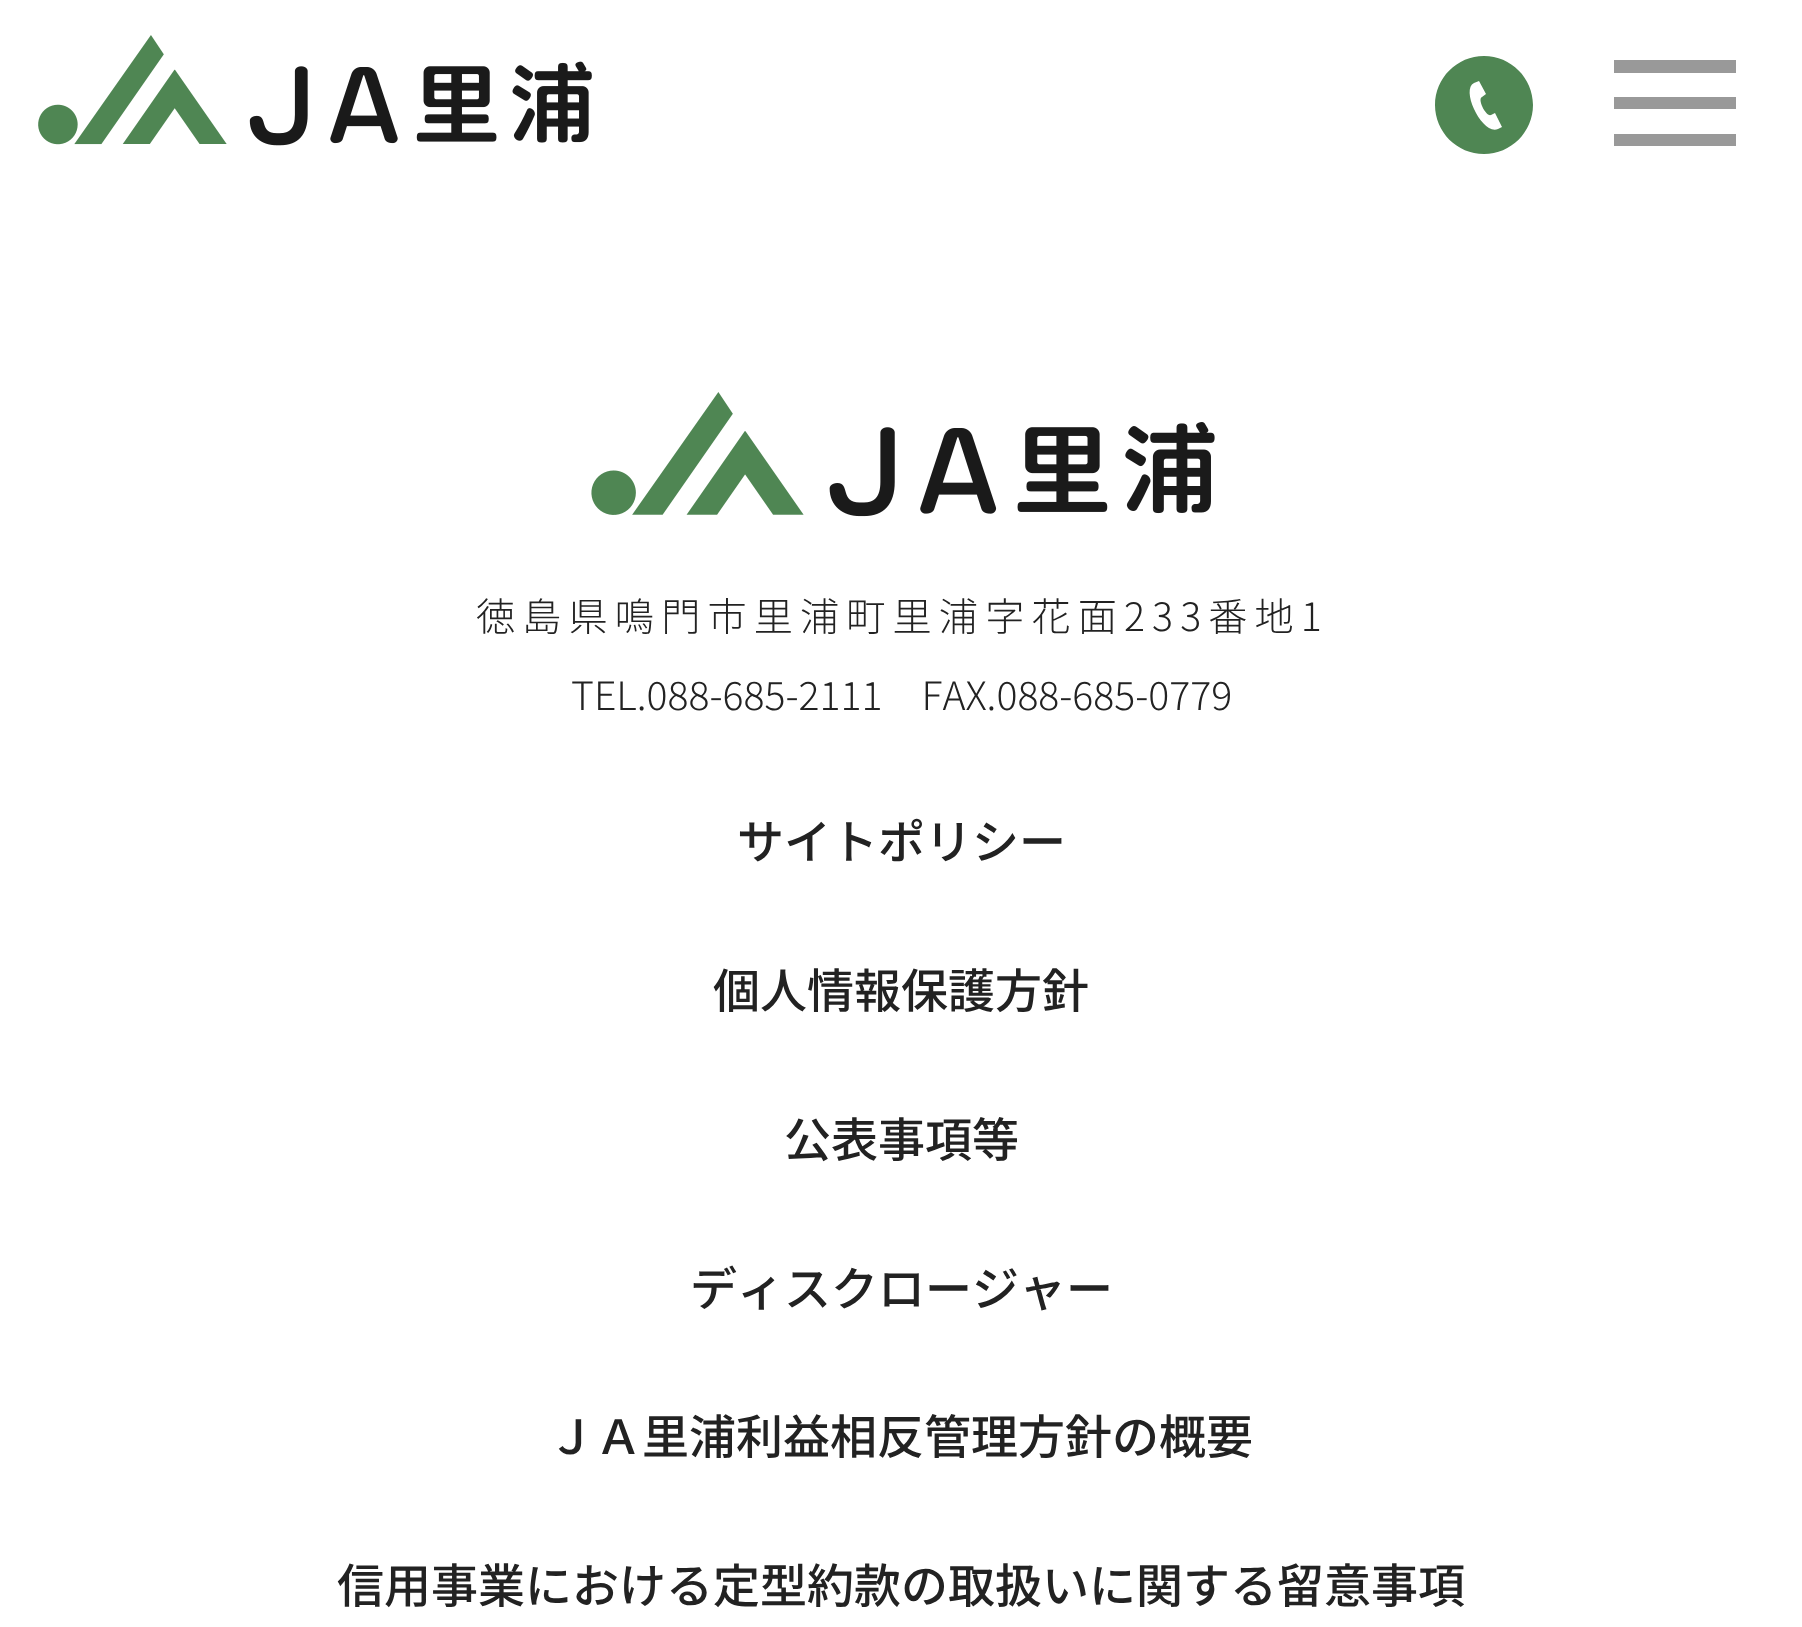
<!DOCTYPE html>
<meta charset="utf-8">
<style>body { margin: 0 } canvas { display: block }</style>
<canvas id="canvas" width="1802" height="1627"></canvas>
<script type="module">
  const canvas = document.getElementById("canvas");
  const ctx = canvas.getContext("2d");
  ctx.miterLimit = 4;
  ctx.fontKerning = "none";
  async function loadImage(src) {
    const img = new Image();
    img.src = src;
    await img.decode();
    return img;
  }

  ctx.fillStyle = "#ffffff";
  ctx.fillRect(0, 0, 1802, 1627);
  ctx.drawImage(await loadImage("img1.png"), 38, 35, 554, 111);
  ctx.fillStyle = "#4f8653";
  ctx.beginPath();
  ctx.moveTo(1484, 56);
  ctx.bezierCurveTo(1457, 56, 1435, 78, 1435, 105);
  ctx.bezierCurveTo(1435, 132, 1457, 154, 1484, 154);
  ctx.bezierCurveTo(1511, 154, 1533, 132, 1533, 105);
  ctx.bezierCurveTo(1533, 78, 1511, 56, 1484, 56);
  ctx.closePath();
  ctx.moveTo(1498, 129);
  ctx.bezierCurveTo(1483, 136, 1460, 90, 1474, 83);
  ctx.lineTo(1479, 81);
  ctx.lineTo(1486, 94);
  ctx.lineTo(1482, 97);
  ctx.bezierCurveTo(1477, 99, 1486, 117, 1491, 115);
  ctx.lineTo(1495, 113);
  ctx.lineTo(1502, 127);
  ctx.closePath();
  ctx.fill();
  ctx.fillStyle = "#999999";
  ctx.fillRect(1614, 97, 122, 12);
  ctx.fillRect(1614, 60, 122, 13);
  ctx.fillRect(1614, 134, 122, 12);
  ctx.drawImage(await loadImage("img2.png"), 591, 392, 624, 125);
  ctx.letterSpacing = "7.1px";
  ctx.font = "300 39.2px Noto Sans JP";
  ctx.fillStyle = "#222222";
  ctx.fillText("徳島県鳴門市里浦町里浦字花面233番地1", 476, 631);
  ctx.letterSpacing = "0px";
  ctx.fillText("TEL.088-685-2111　FAX.088-685-0779", 571, 710);
  ctx.font = "500 47px Noto Sans JP";
  ctx.fillText("サイトポリシー", 737, 859);
  ctx.fillText("個人情報保護方針", 713, 1008);
  ctx.fillText("公表事項等", 784, 1157);
  ctx.fillText("ディスクロージャー", 690, 1306);
  ctx.fillText("ＪＡ里浦利益相反管理方針の概要", 548, 1454);
  ctx.fillText("信用事業における定型約款の取扱いに関する留意事項", 337, 1603);
</script>
